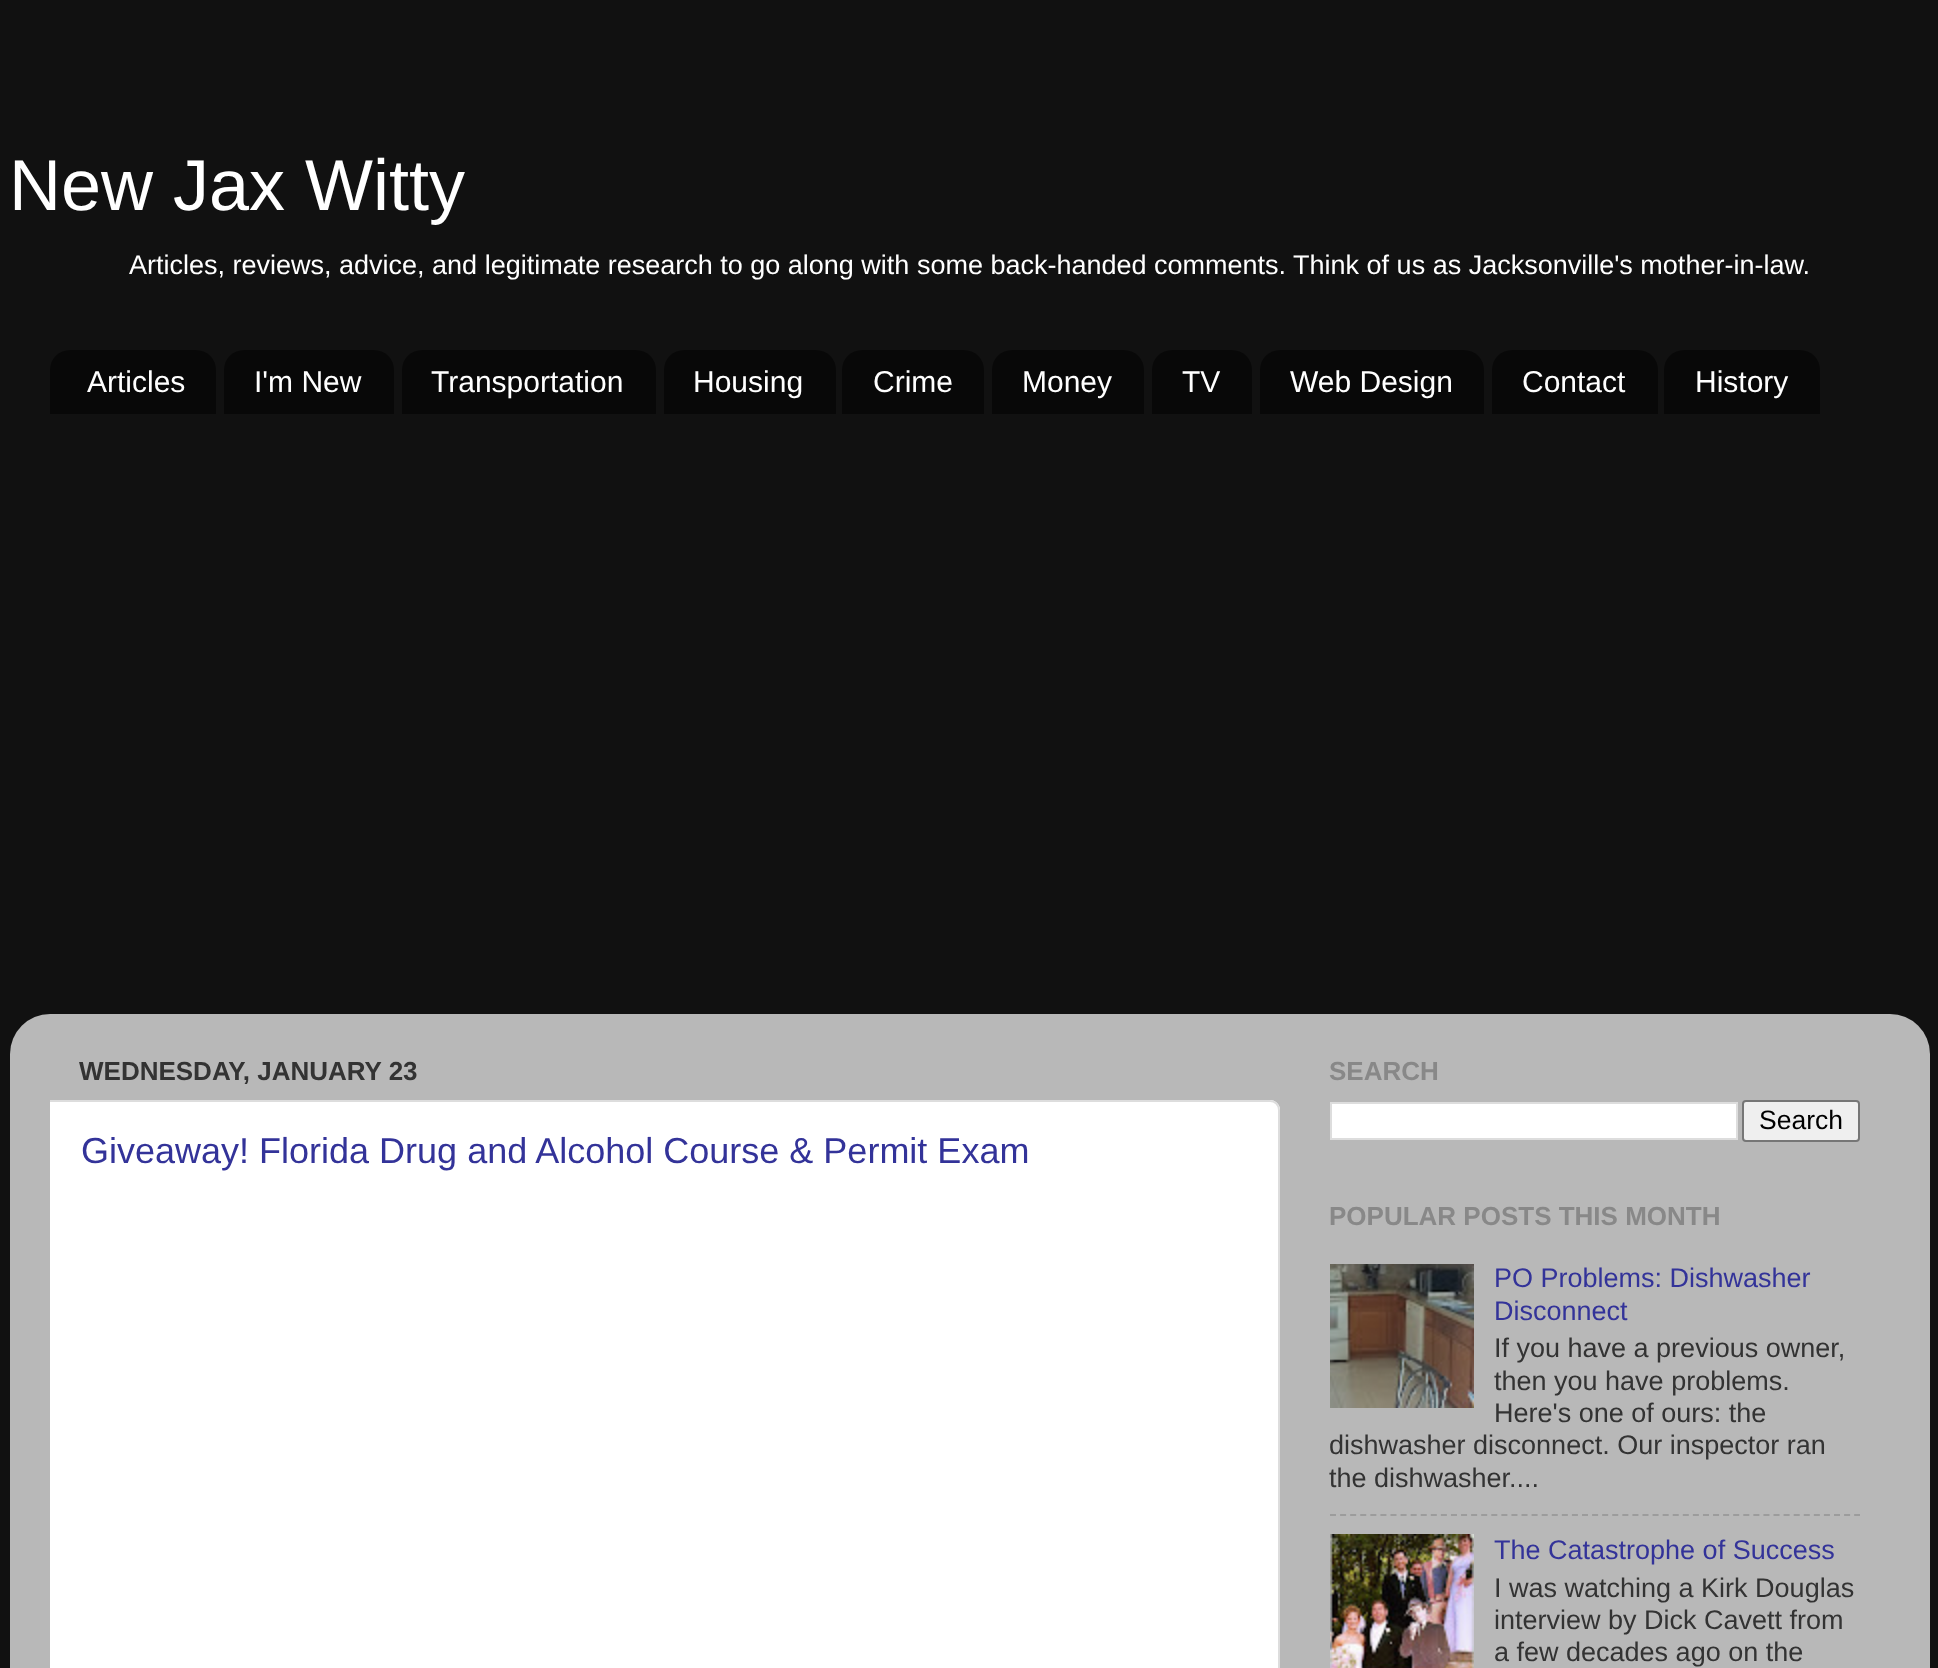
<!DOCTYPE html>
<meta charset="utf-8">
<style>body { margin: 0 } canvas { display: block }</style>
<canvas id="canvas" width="1938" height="1668"></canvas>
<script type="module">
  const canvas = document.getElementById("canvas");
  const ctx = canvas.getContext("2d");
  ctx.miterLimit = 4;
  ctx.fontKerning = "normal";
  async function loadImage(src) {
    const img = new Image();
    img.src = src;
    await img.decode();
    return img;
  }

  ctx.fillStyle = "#111111";
  ctx.fillRect(0, 0, 1938, 1668);
  ctx.font = "72px Liberation Sans";
  ctx.fillStyle = "#ffffff";
  ctx.fillText("New Jax Witty", 9, 210);
  ctx.font = "27px Liberation Sans";
  ctx.fillText("Articles, reviews, advice, and legitimate research to go along with some back-handed comments. Think of us as Jacksonville's mother-in-law.", 129, 274);
  ctx.drawImage(await loadImage("img1.png"), 50, 350, 166, 64);
  ctx.font = "30px Liberation Sans";
  ctx.fillText("Articles", 87, 392);
  ctx.drawImage(await loadImage("img2.png"), 224, 350, 170, 64);
  ctx.fillText("I'm New", 254, 392);
  ctx.drawImage(await loadImage("img3.png"), 402, 350, 254, 64);
  ctx.fillText("Transportation", 431, 392);
  ctx.drawImage(await loadImage("img4.png"), 664, 350, 172, 64);
  ctx.fillText("Housing", 693, 392);
  ctx.drawImage(await loadImage("img5.png"), 842, 350, 142, 64);
  ctx.fillText("Crime", 873, 392);
  ctx.drawImage(await loadImage("img6.png"), 992, 350, 152, 64);
  ctx.fillText("Money", 1022, 392);
  ctx.drawImage(await loadImage("img7.png"), 1152, 350, 100, 64);
  ctx.fillText("TV", 1182, 392);
  ctx.drawImage(await loadImage("img8.png"), 1260, 350, 224, 64);
  ctx.fillText("Web Design", 1290, 392);
  ctx.drawImage(await loadImage("img9.png"), 1492, 350, 166, 64);
  ctx.fillText("Contact", 1522, 392);
  ctx.drawImage(await loadImage("img10.png"), 1664, 350, 156, 64);
  ctx.fillText("History", 1695, 392);
  ctx.drawImage(await loadImage("img11.png"), 10, 1014, 1920, 654);
  ctx.font = "bold 26px Liberation Sans";
  ctx.fillStyle = "#333333";
  ctx.fillText("WEDNESDAY, JANUARY 23", 79, 1080);
  ctx.fillStyle = "#ffffff";
  ctx.beginPath();
  ctx.moveTo(50, 1100);
  ctx.lineTo(1270, 1100);
  ctx.bezierCurveTo(1275.5, 1100, 1280, 1104.5, 1280, 1110);
  ctx.lineTo(1280, 1668);
  ctx.bezierCurveTo(1280, 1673.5, 1275.5, 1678, 1270, 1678);
  ctx.lineTo(50, 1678);
  ctx.closePath();
  ctx.fill();
  ctx.save();
  ctx.beginPath();
  ctx.rect(50, 1044, 1840, 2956);
  ctx.clip();
  ctx.beginPath();
  ctx.roundRect(41, 1101, 1238, 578, 9);
  ctx.strokeStyle = "#dddddd";
  ctx.lineWidth = 2;
  ctx.stroke();
  ctx.restore();
  ctx.font = "36px Liberation Sans";
  ctx.fillStyle = "#333399";
  ctx.fillText("Giveaway! Florida Drug and Alcohol Course & Permit Exam", 81, 1163);
  ctx.font = "bold 26px Liberation Sans";
  ctx.fillStyle = "#888888";
  ctx.fillText("SEARCH", 1329, 1080);
  ctx.fillStyle = "#ffffff";
  ctx.beginPath();
  ctx.rect(1331, 1103, 406, 36);
  ctx.fill();
  ctx.strokeStyle = "#dddddd";
  ctx.lineWidth = 2;
  ctx.stroke();
  ctx.fillStyle = "#efefef";
  ctx.beginPath();
  ctx.roundRect(1743, 1101, 116, 40, 3);
  ctx.fill();
  ctx.strokeStyle = "#767676";
  ctx.stroke();
  ctx.font = "26.5px Liberation Sans";
  ctx.fillStyle = "#000000";
  ctx.fillText("Search", 1759, 1129);
  ctx.font = "bold 26px Liberation Sans";
  ctx.fillStyle = "#888888";
  ctx.fillText("POPULAR POSTS THIS MONTH", 1329, 1225);
  ctx.drawImage(await loadImage("img12.png"), 1330, 1264, 144, 144);
  ctx.font = "27px Liberation Sans";
  ctx.fillStyle = "#333399";
  ctx.fillText("PO Problems: Dishwasher", 1494, 1287);
  ctx.fillText("Disconnect", 1494, 1320);
  ctx.fillStyle = "#333333";
  ctx.fillText("If you have a previous owner,", 1494, 1357);
  ctx.fillText("then you have problems.", 1494, 1390);
  ctx.fillText("Here's one of ours: the", 1494, 1422);
  ctx.fillText("dishwasher disconnect. Our inspector ran", 1329, 1454);
  ctx.fillText("the dishwasher....", 1329, 1487);
  ctx.beginPath();
  ctx.moveTo(1330, 1515);
  ctx.lineTo(1860, 1515);
  ctx.strokeStyle = "#9c9c9c";
  ctx.setLineDash([6, 4.08]);
  ctx.stroke();
  ctx.drawImage(await loadImage("img13.png"), 1330, 1534, 144, 134);
  ctx.fillStyle = "#333399";
  ctx.fillText("The Catastrophe of Success", 1494, 1559);
  ctx.fillStyle = "#333333";
  ctx.fillText("I was watching a Kirk Douglas", 1494, 1597);
  ctx.fillText("interview by Dick Cavett from", 1494, 1629);
  ctx.fillText("a few decades ago on the", 1494, 1661);
</script>
